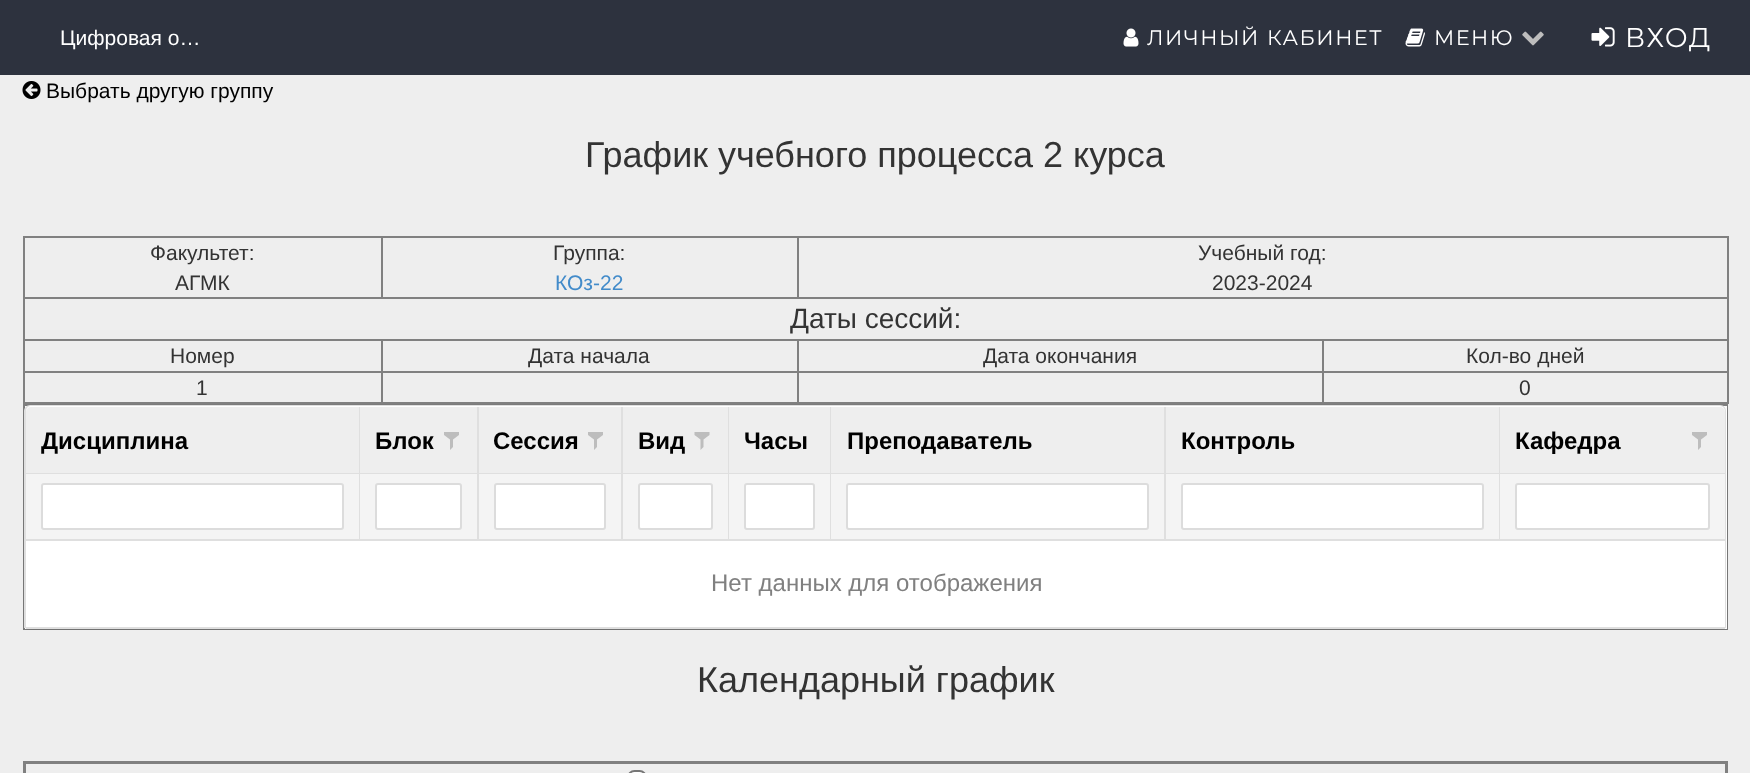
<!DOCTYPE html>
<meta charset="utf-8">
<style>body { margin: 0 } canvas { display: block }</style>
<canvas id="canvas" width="1750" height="773"></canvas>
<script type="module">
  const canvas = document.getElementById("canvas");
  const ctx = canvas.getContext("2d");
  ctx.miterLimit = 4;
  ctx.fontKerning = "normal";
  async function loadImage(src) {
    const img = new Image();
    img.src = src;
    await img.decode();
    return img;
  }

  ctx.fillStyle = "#eeeeee";
  ctx.fillRect(0, 0, 1750, 773);
  ctx.fillStyle = "#2d323e";
  ctx.fillRect(0, 0, 1750, 75);
  ctx.font = "21px Liberation Sans";
  ctx.fillStyle = "#ffffff";
  ctx.fillText("Цифровая о…", 60, 45);
  ctx.drawImage(await loadImage("img1.png"), 1123, 28, 16, 19);
  ctx.letterSpacing = "1.5px";
  ctx.font = "21px Montserrat";
  ctx.fillText("ЛИЧНЫЙ КАБИНЕТ", 1147, 45);
  ctx.drawImage(await loadImage("img2.png"), 1405, 28, 20, 19);
  ctx.fillText("МЕНЮ", 1434, 45);
  ctx.drawImage(await loadImage("img3.png"), 1522, 31, 22, 15);
  ctx.drawImage(await loadImage("img4.png"), 1591, 27, 24, 20);
  ctx.font = "27px Montserrat";
  ctx.fillText("ВХОД", 1625, 47);
  ctx.drawImage(await loadImage("img5.png"), 22, 81, 19, 18);
  ctx.letterSpacing = "0px";
  ctx.font = "21px Liberation Sans";
  ctx.fillStyle = "#000000";
  ctx.fillText("Выбрать другую группу", 46, 98);
  ctx.font = "36px Liberation Sans";
  ctx.fillStyle = "#333333";
  ctx.fillText("График учебного процесса 2 курса", 585, 167);
  ctx.fillStyle = "#808080";
  ctx.fillRect(797, 236, 931, 2);
  ctx.fillRect(23, 297, 1705, 2);
  ctx.fillRect(797, 236, 2, 63);
  ctx.fillRect(381, 236, 417, 2);
  ctx.fillRect(381, 236, 2, 63);
  ctx.fillRect(23, 236, 360, 2);
  ctx.fillRect(1322, 339, 406, 2);
  ctx.fillRect(1322, 371, 406, 2);
  ctx.fillRect(1727, 371, 2, 33);
  ctx.fillRect(1322, 402, 406, 2);
  ctx.fillRect(1322, 371, 2, 33);
  ctx.fillRect(797, 371, 526, 2);
  ctx.fillRect(1322, 339, 2, 33);
  ctx.fillRect(797, 339, 526, 2);
  ctx.fillRect(797, 402, 526, 2);
  ctx.fillRect(797, 371, 2, 33);
  ctx.fillRect(381, 371, 417, 2);
  ctx.fillRect(797, 339, 2, 33);
  ctx.fillRect(381, 339, 417, 2);
  ctx.fillRect(381, 402, 417, 2);
  ctx.fillRect(381, 371, 2, 33);
  ctx.fillRect(23, 371, 360, 2);
  ctx.fillRect(381, 339, 2, 33);
  ctx.fillRect(23, 339, 360, 2);
  ctx.fillRect(23, 402, 360, 2);
  ctx.fillRect(23, 371, 2, 33);
  ctx.fillRect(23, 339, 2, 33);
  ctx.fillRect(23, 297, 2, 44);
  ctx.fillRect(23, 236, 2, 63);
  ctx.font = "21px Liberation Sans";
  ctx.fillStyle = "#333333";
  ctx.fillText("Факультет:", 150, 260);
  ctx.fillText("АГМК", 175, 290);
  ctx.fillText("Группа:", 553, 260);
  ctx.fillStyle = "#428bca";
  ctx.fillText("КОз-22", 555, 290);
  ctx.fillStyle = "#808080";
  ctx.fillRect(1727, 339, 2, 33);
  ctx.fillRect(1727, 297, 2, 44);
  ctx.fillRect(1727, 236, 2, 63);
  ctx.fillStyle = "#333333";
  ctx.fillText("Учебный год:", 1198, 260);
  ctx.fillText("2023-2024", 1212, 290);
  ctx.font = "28px Liberation Sans";
  ctx.fillText("Даты сессий:", 790, 328);
  ctx.font = "21px Liberation Sans";
  ctx.fillText("Номер", 170, 363);
  ctx.fillText("Дата начала", 528, 363);
  ctx.fillText("Дата окончания", 983, 363);
  ctx.fillText("Кол-во дней", 1466, 363);
  ctx.fillText("1", 196, 395);
  ctx.fillText("0", 1519, 395);
  ctx.fillStyle = "#ffffff";
  ctx.fillRect(25, 406, 1702, 223);
  ctx.fillStyle = "#808080";
  ctx.fillRect(23, 404, 1705, 2);
  ctx.fillRect(1727, 404, 1, 226);
  ctx.fillRect(23, 629, 1705, 1);
  ctx.fillRect(23, 404, 2, 226);
  ctx.save();
  ctx.beginPath();
  ctx.rect(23, 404, 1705, 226);
  ctx.clip();
  ctx.beginPath();
  ctx.moveTo(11, 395);
  ctx.lineTo(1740, 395);
  ctx.lineTo(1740, 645);
  ctx.lineTo(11, 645);
  ctx.closePath();
  ctx.moveTo(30, 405);
  ctx.lineTo(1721, 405);
  ctx.bezierCurveTo(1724.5, 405, 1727, 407.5, 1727, 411);
  ctx.lineTo(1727, 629);
  ctx.lineTo(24, 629);
  ctx.lineTo(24, 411);
  ctx.bezierCurveTo(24, 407.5, 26.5, 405, 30, 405);
  ctx.closePath();
  ctx.clip("evenodd");
  ctx.fillStyle = "rgba(0, 0, 0, 0.16)";
  ctx.filter = "blur(4px)";
  ctx.beginPath();
  ctx.roundRect(24, 408, 1703, 224, 6);
  ctx.fill();
  ctx.filter = "none";
  ctx.restore();
  ctx.fillStyle = "#ffffff";
  ctx.beginPath();
  ctx.roundRect(26, 407, 1699, 222, [5, 5, 0, 0]);
  ctx.fill();
  ctx.fillStyle = "#dfdfdf";
  ctx.beginPath();
  ctx.moveTo(30, 405);
  ctx.lineTo(1720, 405);
  ctx.bezierCurveTo(1724, 405, 1726, 408, 1726, 411);
  ctx.lineTo(1726, 628);
  ctx.lineTo(24, 628);
  ctx.lineTo(24, 411);
  ctx.bezierCurveTo(24, 408, 27, 405, 30, 405);
  ctx.closePath();
  ctx.moveTo(30, 406);
  ctx.lineTo(1720, 406);
  ctx.bezierCurveTo(1723, 406, 1725, 409, 1725, 411);
  ctx.lineTo(1725, 628);
  ctx.lineTo(26, 628);
  ctx.lineTo(26, 411);
  ctx.bezierCurveTo(26, 409, 28, 406, 30, 406);
  ctx.closePath();
  ctx.fill("evenodd");
  ctx.fillStyle = "#eeeeee";
  ctx.beginPath();
  ctx.roundRect(26, 407, 333, 66, [5, 0, 0, 0]);
  ctx.fill();
  ctx.fillStyle = "#dfdfdf";
  ctx.fillRect(359, 407, 1, 133);
  ctx.fillRect(26, 473, 334, 1);
  ctx.font = "bold 24px Liberation Sans";
  ctx.fillStyle = "#000000";
  ctx.fillText("Дисциплина", 41, 449);
  ctx.fillStyle = "#eeeeee";
  ctx.fillRect(360, 407, 117, 66);
  ctx.fillStyle = "#dfdfdf";
  ctx.fillRect(477, 407, 2, 133);
  ctx.fillRect(360, 473, 119, 1);
  ctx.fillStyle = "#000000";
  ctx.fillText("Блок", 375, 449);
  ctx.drawImage(await loadImage("img6.png"), 444, 432, 15, 18);
  ctx.fillStyle = "#eeeeee";
  ctx.fillRect(479, 407, 142, 66);
  ctx.fillStyle = "#dfdfdf";
  ctx.fillRect(621, 407, 2, 133);
  ctx.fillRect(479, 473, 144, 1);
  ctx.fillStyle = "#000000";
  ctx.fillText("Сессия", 493, 449);
  ctx.drawImage(await loadImage("img6.png"), 588, 432, 15, 18);
  ctx.fillStyle = "#eeeeee";
  ctx.fillRect(623, 407, 105, 66);
  ctx.fillStyle = "#dfdfdf";
  ctx.fillRect(728, 407, 1, 133);
  ctx.fillRect(623, 473, 106, 1);
  ctx.fillStyle = "#000000";
  ctx.fillText("Вид", 638, 449);
  ctx.drawImage(await loadImage("img7.png"), 694, 432, 16, 18);
  ctx.fillStyle = "#eeeeee";
  ctx.fillRect(729, 407, 101, 66);
  ctx.fillStyle = "#dfdfdf";
  ctx.fillRect(830, 407, 1, 133);
  ctx.fillRect(729, 473, 102, 1);
  ctx.fillStyle = "#000000";
  ctx.fillText("Часы", 744, 449);
  ctx.fillStyle = "#eeeeee";
  ctx.fillRect(831, 407, 333, 66);
  ctx.fillStyle = "#dfdfdf";
  ctx.fillRect(1164, 407, 2, 133);
  ctx.fillRect(831, 473, 335, 1);
  ctx.fillStyle = "#000000";
  ctx.fillText("Преподаватель", 847, 449);
  ctx.fillStyle = "#eeeeee";
  ctx.fillRect(1166, 407, 333, 66);
  ctx.fillStyle = "#dfdfdf";
  ctx.fillRect(1499, 407, 1, 133);
  ctx.fillRect(1166, 473, 559, 1);
  ctx.fillStyle = "#000000";
  ctx.fillText("Контроль", 1181, 449);
  ctx.fillStyle = "#eeeeee";
  ctx.beginPath();
  ctx.roundRect(1500, 407, 225, 66, [0, 5, 0, 0]);
  ctx.fill();
  ctx.fillStyle = "#000000";
  ctx.fillText("Кафедра", 1515, 449);
  ctx.drawImage(await loadImage("img6.png"), 1692, 432, 15, 18);
  ctx.fillStyle = "#f4f4f4";
  ctx.fillRect(26, 474, 333, 65);
  ctx.fillStyle = "#dfdfdf";
  ctx.fillRect(26, 539, 1699, 2);
  ctx.fillStyle = "#ffffff";
  ctx.beginPath();
  ctx.roundRect(42, 484, 301, 45, 2);
  ctx.fill();
  ctx.strokeStyle = "#dcdcdc";
  ctx.lineWidth = 2;
  ctx.stroke();
  ctx.fillStyle = "#f4f4f4";
  ctx.fillRect(360, 474, 117, 65);
  ctx.fillStyle = "#ffffff";
  ctx.beginPath();
  ctx.roundRect(376, 484, 85, 45, 2);
  ctx.fill();
  ctx.stroke();
  ctx.fillStyle = "#f4f4f4";
  ctx.fillRect(479, 474, 142, 65);
  ctx.fillStyle = "#ffffff";
  ctx.beginPath();
  ctx.roundRect(495, 484, 110, 45, 2);
  ctx.fill();
  ctx.stroke();
  ctx.fillStyle = "#f4f4f4";
  ctx.fillRect(623, 474, 105, 65);
  ctx.fillStyle = "#ffffff";
  ctx.beginPath();
  ctx.roundRect(639, 484, 73, 45, 2);
  ctx.fill();
  ctx.stroke();
  ctx.fillStyle = "#f4f4f4";
  ctx.fillRect(729, 474, 101, 65);
  ctx.fillStyle = "#ffffff";
  ctx.beginPath();
  ctx.roundRect(745, 484, 69, 45, 2);
  ctx.fill();
  ctx.stroke();
  ctx.fillStyle = "#f4f4f4";
  ctx.fillRect(831, 474, 333, 65);
  ctx.fillStyle = "#ffffff";
  ctx.beginPath();
  ctx.roundRect(847, 484, 301, 45, 2);
  ctx.fill();
  ctx.stroke();
  ctx.fillStyle = "#f4f4f4";
  ctx.fillRect(1166, 474, 333, 65);
  ctx.fillStyle = "#ffffff";
  ctx.beginPath();
  ctx.roundRect(1182, 484, 301, 45, 2);
  ctx.fill();
  ctx.stroke();
  ctx.fillStyle = "#f4f4f4";
  ctx.fillRect(1500, 474, 225, 65);
  ctx.fillStyle = "#ffffff";
  ctx.beginPath();
  ctx.roundRect(1516, 484, 193, 45, 2);
  ctx.fill();
  ctx.stroke();
  ctx.fillStyle = "#dfdfdf";
  ctx.fillRect(26, 627, 1699, 2);
  ctx.font = "24px Liberation Sans";
  ctx.fillStyle = "#808080";
  ctx.fillText("Нет данных для отображения", 711, 591);
  ctx.font = "36px Liberation Sans";
  ctx.fillStyle = "#333333";
  ctx.fillText("Календарный график", 697, 692);
  ctx.fillStyle = "#808080";
  ctx.fillRect(23, 761, 1705, 3);
  ctx.fillRect(1725, 761, 3, 12);
  ctx.fillRect(23, 761, 3, 12);
  ctx.fillStyle = "#ffffff";
  ctx.beginPath();
  ctx.roundRect(628, 771, 18, 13, 8.5);
  ctx.fill();
  ctx.strokeStyle = "#767676";
  ctx.stroke();
</script>
